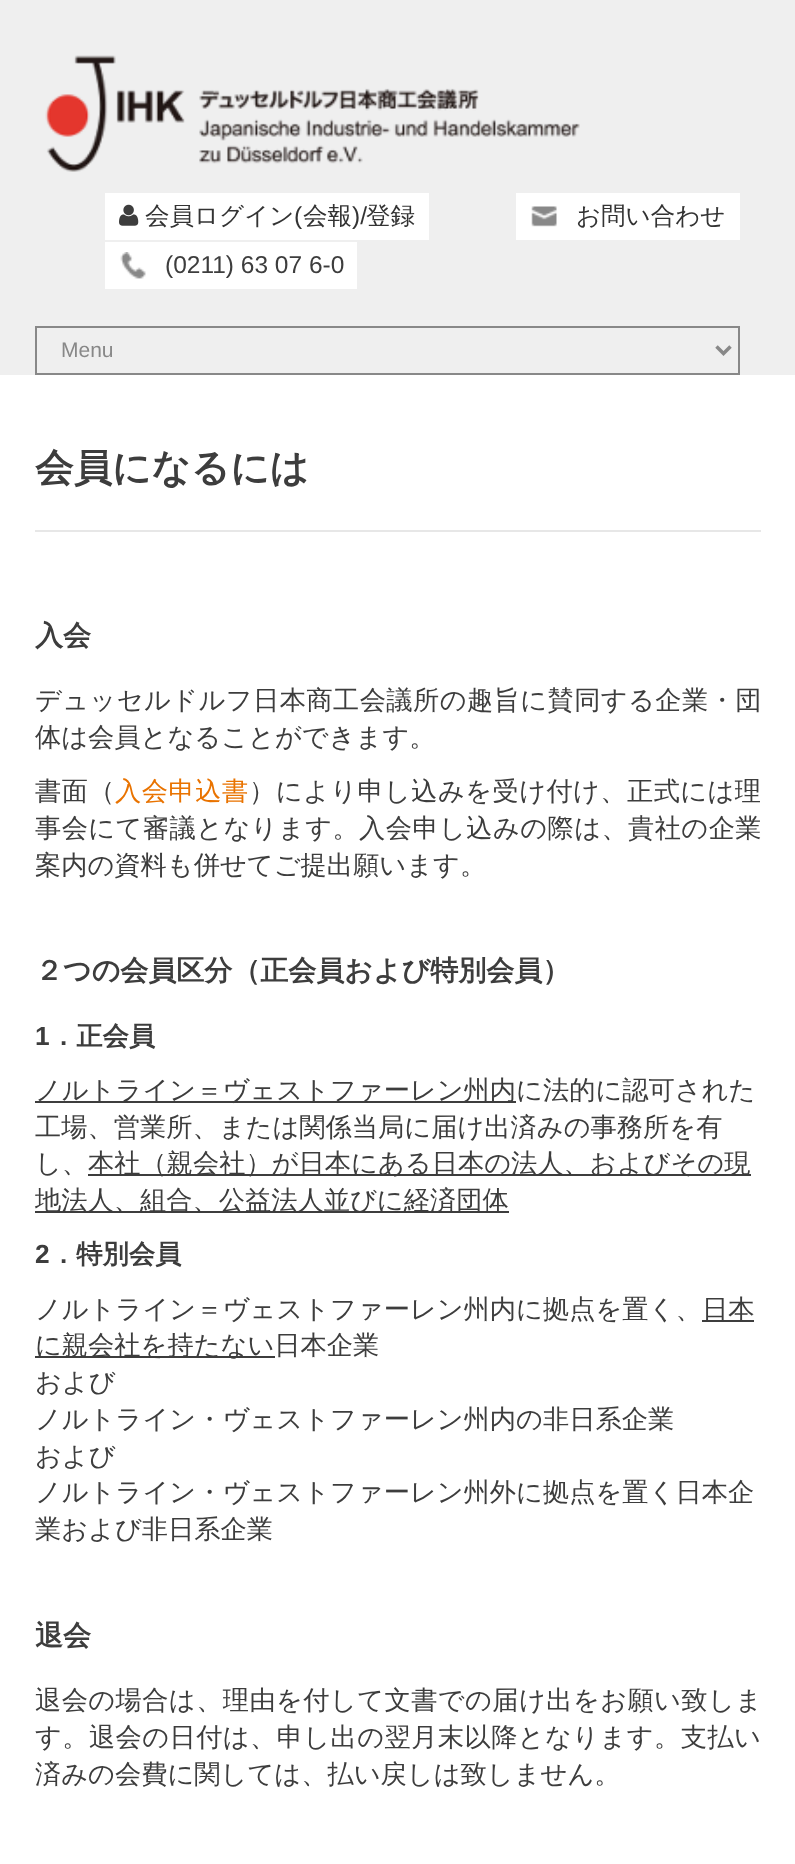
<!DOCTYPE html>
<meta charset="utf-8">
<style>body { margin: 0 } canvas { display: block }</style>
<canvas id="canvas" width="795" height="1864"></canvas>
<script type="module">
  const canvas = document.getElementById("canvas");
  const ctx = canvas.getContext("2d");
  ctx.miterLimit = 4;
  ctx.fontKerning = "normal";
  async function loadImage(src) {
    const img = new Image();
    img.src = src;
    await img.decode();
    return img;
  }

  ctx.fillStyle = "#ffffff";
  ctx.fillRect(0, 0, 795, 1864);
  ctx.fillStyle = "#efefef";
  ctx.fillRect(0, 0, 795, 375);
  ctx.drawImage(await loadImage("img1.png"), 45, 55, 535, 117);
  ctx.fillStyle = "#ffffff";
  ctx.fillRect(105, 193, 324, 47);
  ctx.drawImage(await loadImage("img2.png"), 119, 204, 20, 22);
  ctx.font = "500 24.5px WenQuanYi Zen Hei";
  ctx.fillStyle = "#333333";
  ctx.fillText("会員ログイン", 145, 224);
  ctx.font = "24.5px Liberation Sans";
  ctx.fillText("(", 294, 224);
  ctx.font = "500 24.5px WenQuanYi Zen Hei";
  ctx.fillText("会報", 303, 224);
  ctx.font = "24.5px Liberation Sans";
  ctx.fillText(")/", 352, 224);
  ctx.font = "500 24.5px WenQuanYi Zen Hei";
  ctx.fillText("登録", 366, 224);
  ctx.fillStyle = "#ffffff";
  ctx.fillRect(516, 193, 224, 47);
  ctx.drawImage(await loadImage("img3.png"), 531, 206, 26, 21);
  ctx.fillStyle = "#333333";
  ctx.fillText("お問い合わせ", 576, 224);
  ctx.fillStyle = "#ffffff";
  ctx.fillRect(105, 242, 252, 47);
  ctx.drawImage(await loadImage("img4.png"), 120, 252, 26, 27);
  ctx.font = "24.5px Liberation Sans";
  ctx.fillStyle = "#3d3d3d";
  ctx.fillText("(0211) 63 07 6-0", 165, 273);
  ctx.strokeStyle = "#888888";
  ctx.lineWidth = 2;
  ctx.strokeRect(36, 327, 703, 47);
  ctx.beginPath();
  ctx.moveTo(716.5, 346.5);
  ctx.lineTo(723.5, 353.5);
  ctx.lineTo(730.5, 346.5);
  ctx.lineWidth = 3.5;
  ctx.stroke();
  ctx.font = "21px Liberation Sans";
  ctx.fillStyle = "#888888";
  ctx.fillText("Menu", 61, 357);
  ctx.fillStyle = "#e7e7e7";
  ctx.fillRect(35, 530, 726, 2);
  ctx.font = "bold 38.5px WenQuanYi Zen Hei";
  ctx.fillStyle = "#3d3d3d";
  ctx.fillText("会員になるには", 35, 481);
  ctx.font = "bold 28px WenQuanYi Zen Hei";
  ctx.fillText("入会", 35, 645);
  ctx.letterSpacing = "0.4px";
  ctx.font = "500 26.25px WenQuanYi Zen Hei";
  ctx.fillText("デュッセルドルフ日本商工会議所の趣旨に賛同する企業・団", 35, 709);
  ctx.letterSpacing = "0px";
  ctx.fillText("体は会員となることができます。", 35, 746);
  ctx.letterSpacing = "0.5px";
  ctx.fillText("書面（", 35, 800);
  ctx.fillStyle = "#e97300";
  ctx.fillText("入会申込書", 115, 800);
  ctx.letterSpacing = "0.4px";
  ctx.fillStyle = "#3d3d3d";
  ctx.fillText("）により申し込みを受け付け、正式には理", 249, 800);
  ctx.fillText("事会にて審議となります。入会申し込みの際は、貴社の企業", 35, 837);
  ctx.letterSpacing = "0px";
  ctx.fillText("案内の資料も併せてご提出願います。", 35, 874);
  ctx.font = "bold 28px WenQuanYi Zen Hei";
  ctx.fillText("２つの会員区分（正会員および特別会員）", 35, 980);
  ctx.font = "bold 26.25px Liberation Sans";
  ctx.fillText("1", 35, 1045);
  ctx.font = "bold 26.25px WenQuanYi Zen Hei";
  ctx.fillText("．正会員", 50, 1045);
  ctx.fillRect(35, 1101, 481, 2);
  ctx.font = "500 26.25px WenQuanYi Zen Hei";
  ctx.fillText("ノルトライン＝ヴェストファーレン州内に法的に認可された", 35, 1099);
  ctx.fillText("工場、営業所、または関係当局に届け出済みの事務所を有", 35, 1136);
  ctx.fillText("し、", 35, 1172);
  ctx.fillRect(88, 1174, 663, 2);
  ctx.fillText("本社（親会社）が日本にある日本の法人、およびその現", 88, 1172);
  ctx.fillRect(35, 1211, 474, 2);
  ctx.fillText("地法人、組合、公益法人並びに経済団体", 35, 1209);
  ctx.font = "bold 26.25px Liberation Sans";
  ctx.fillText("2", 35, 1263);
  ctx.font = "bold 26.25px WenQuanYi Zen Hei";
  ctx.fillText("．特別会員", 50, 1263);
  ctx.font = "500 26.25px WenQuanYi Zen Hei";
  ctx.fillText("ノルトライン＝ヴェストファーレン州内に拠点を置く、", 35, 1318);
  ctx.fillRect(702, 1320, 52, 2);
  ctx.fillText("日本", 702, 1318);
  ctx.fillRect(35, 1356, 240, 2);
  ctx.fillText("に親会社を持たない日本企業", 35, 1354);
  ctx.fillText("および", 35, 1391);
  ctx.fillText("ノルトライン・ヴェストファーレン州内の非日系企業", 35, 1428);
  ctx.fillText("および", 35, 1465);
  ctx.fillText("ノルトライン・ヴェストファーレン州外に拠点を置く日本企", 35, 1501);
  ctx.fillText("業および非日系企業", 35, 1538);
  ctx.font = "bold 28px WenQuanYi Zen Hei";
  ctx.fillText("退会", 35, 1645);
  ctx.letterSpacing = "0.4px";
  ctx.font = "500 26.25px WenQuanYi Zen Hei";
  ctx.fillText("退会の場合は、理由を付して文書での届け出をお願い致しま", 35, 1709);
  ctx.fillText("す。退会の日付は、申し出の翌月末以降となります。支払い", 35, 1746);
  ctx.letterSpacing = "0px";
  ctx.fillText("済みの会費に関しては、払い戻しは致しません。", 35, 1783);
</script>
